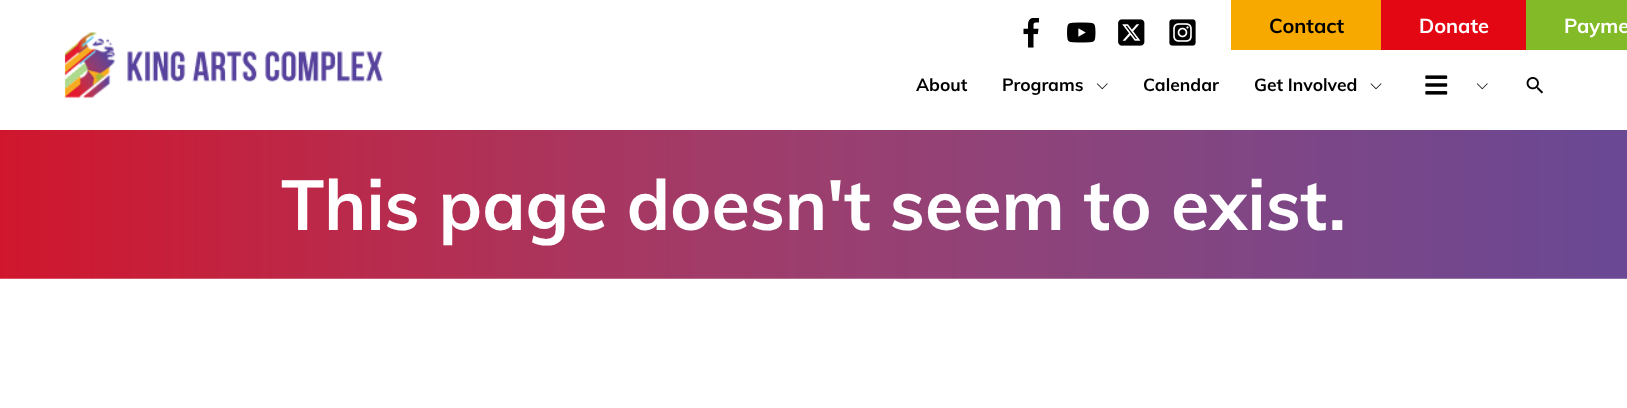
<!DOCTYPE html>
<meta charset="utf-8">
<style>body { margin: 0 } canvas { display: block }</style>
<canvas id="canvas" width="1627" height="408"></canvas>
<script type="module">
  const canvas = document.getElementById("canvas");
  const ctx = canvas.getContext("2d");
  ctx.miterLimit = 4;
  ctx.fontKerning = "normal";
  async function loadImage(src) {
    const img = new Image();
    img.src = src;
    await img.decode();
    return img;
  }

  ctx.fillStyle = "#ffffff";
  ctx.fillRect(0, 0, 1627, 408);
  ctx.drawImage(await loadImage("img1.png"), 64, 32, 319, 66);
  ctx.drawImage(await loadImage("img2.png"), 1023, 18, 16, 30);
  ctx.drawImage(await loadImage("img3.png"), 1067, 22, 29, 21);
  ctx.drawImage(await loadImage("img4.png"), 1118, 19, 27, 27);
  ctx.drawImage(await loadImage("img5.png"), 1169, 19, 27, 27);
  ctx.fillStyle = "#f8a900";
  ctx.fillRect(1231, 0, 150, 50);
  ctx.font = "bold 20px Muli";
  ctx.fillStyle = "#000000";
  ctx.fillText("Contact", 1269, 33);
  ctx.fillStyle = "#e30613";
  ctx.fillRect(1381, 0, 145, 50);
  ctx.fillStyle = "#ffffff";
  ctx.fillText("Donate", 1419, 33);
  ctx.fillStyle = "#82bb27";
  ctx.fillRect(1526, 0, 101, 50);
  ctx.fillStyle = "#ffffff";
  ctx.fillText("Payme", 1564, 33);
  ctx.font = "bold 17.5px Muli";
  ctx.fillStyle = "#000000";
  ctx.fillText("About", 916, 91);
  ctx.fillText("Programs", 1002, 91);
  ctx.drawImage(await loadImage("img6.png"), 1096, 83, 12, 7);
  ctx.fillText("Calendar", 1143, 91);
  ctx.fillText("Get Involved", 1254, 91);
  ctx.drawImage(await loadImage("img7.png"), 1370, 83, 12, 7);
  ctx.drawImage(await loadImage("img8.png"), 1425, 75, 23, 20);
  ctx.drawImage(await loadImage("img6.png"), 1476, 83, 12, 7);
  ctx.drawImage(await loadImage("img9.png"), 1526, 77, 18, 17);
  ctx.drawImage(await loadImage("img10.png"), 0, 130, 1627, 149);
  ctx.font = "bold 70px Muli";
  ctx.fillStyle = "#ffffff";
  ctx.fillText("This page doesn't seem to exist.", 281, 230);
</script>
